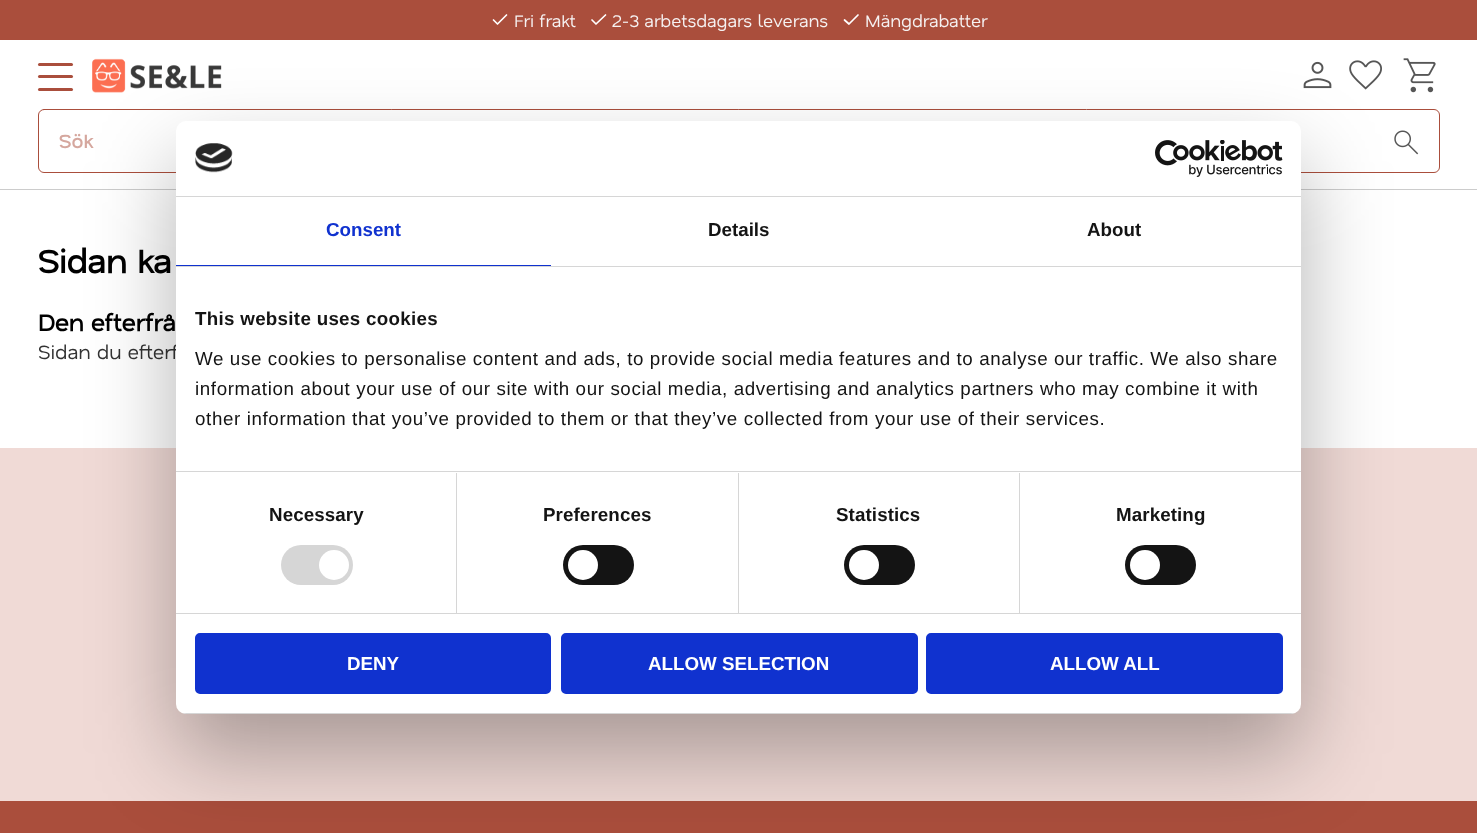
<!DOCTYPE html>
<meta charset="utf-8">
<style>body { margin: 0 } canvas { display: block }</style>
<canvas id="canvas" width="1477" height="833"></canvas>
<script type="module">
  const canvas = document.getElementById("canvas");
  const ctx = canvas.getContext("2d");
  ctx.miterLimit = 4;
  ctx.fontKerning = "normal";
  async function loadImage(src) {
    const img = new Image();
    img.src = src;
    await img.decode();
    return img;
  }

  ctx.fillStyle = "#ffffff";
  ctx.fillRect(0, 0, 1477, 833);
  ctx.fillStyle = "#cccccc";
  ctx.fillRect(0, 189, 1477, 1);
  ctx.fillStyle = "#aa4e3c";
  ctx.beginPath();
  ctx.roundRect(38, 75, 35, 3, 1.5);
  ctx.fill();
  ctx.beginPath();
  ctx.roundRect(38, 63, 35, 3, 1.5);
  ctx.fill();
  ctx.beginPath();
  ctx.roundRect(38, 88, 35, 3, 1.5);
  ctx.fill();
  ctx.fillRect(0, 0, 1477, 40);
  ctx.beginPath();
  ctx.moveTo(506.5, 15);
  ctx.lineTo(497.5, 24);
  ctx.lineTo(493.5, 20);
  ctx.strokeStyle = "#ffffff";
  ctx.lineWidth = 1.7;
  ctx.lineCap = "round";
  ctx.lineJoin = "round";
  ctx.stroke();
  ctx.font = "17.5px Nata Sans";
  ctx.fillStyle = "#f6f2f2";
  ctx.fillText("Fri frakt", 514, 27);
  ctx.beginPath();
  ctx.moveTo(605.5, 15);
  ctx.lineTo(596, 24);
  ctx.lineTo(592, 20);
  ctx.stroke();
  ctx.fillText("2-3 arbetsdagars leverans", 612, 27);
  ctx.beginPath();
  ctx.moveTo(858, 15);
  ctx.lineTo(849, 24);
  ctx.lineTo(844.5, 20);
  ctx.stroke();
  ctx.fillText("Mängdrabatter", 865, 27);
  ctx.drawImage(await loadImage("img1.png"), 92, 58, 130, 35);
  ctx.drawImage(await loadImage("img2.png"), 1303, 61, 29, 28);
  ctx.drawImage(await loadImage("img3.png"), 1349, 60, 33, 30);
  ctx.drawImage(await loadImage("img4.png"), 1403, 58, 33, 35);
  ctx.beginPath();
  ctx.roundRect(38.5, 109.5, 1401, 63, 5.5);
  ctx.strokeStyle = "#aa4e3c";
  ctx.lineWidth = 1;
  ctx.lineJoin = "miter";
  ctx.stroke();
  ctx.font = "600 20px Nata Sans";
  ctx.fillStyle = "#d5a79e";
  ctx.fillText("Sök", 59, 148);
  ctx.drawImage(await loadImage("img5.png"), 1394, 130, 25, 25);
  ctx.letterSpacing = "-0.4px";
  ctx.font = "600 35px Nata Sans";
  ctx.fillStyle = "#000000";
  ctx.fillText("Sidan ka", 38, 273);
  ctx.font = "600 25px Nata Sans";
  ctx.fillText("Den efterfrå", 38, 331);
  ctx.letterSpacing = "0px";
  ctx.font = "20px Nata Sans";
  ctx.fillStyle = "#333333";
  ctx.fillText("Sidan du efterf", 38, 359);
  ctx.fillStyle = "#aa4e3c";
  ctx.fillRect(0, 801, 1477, 32);
  ctx.fillStyle = "#f0dad6";
  ctx.fillRect(0, 448, 1477, 353);
  ctx.fillStyle = "rgba(0, 0, 0, 0.3)";
  ctx.filter = "blur(42.5px)";
  ctx.beginPath();
  ctx.roundRect(176, 161, 1125, 593, 10);
  ctx.fill();
  ctx.filter = "none";
  ctx.fillStyle = "#ffffff";
  ctx.beginPath();
  ctx.roundRect(176, 121, 1125, 593, 10);
  ctx.fill();
  ctx.fillStyle = "#d6d6d6";
  ctx.fillRect(176, 196, 1125, 1);
  ctx.drawImage(await loadImage("img6.png"), 195, 143, 38, 30);
  ctx.drawImage(await loadImage("img7.png"), 1155, 140, 128, 37);
  ctx.fillRect(176, 266, 1125, 1);
  ctx.fillStyle = "#1032cf";
  ctx.fillRect(176, 265, 375, 1);
  ctx.font = "bold 18.75px Liberation Sans";
  ctx.fillText("Consent", 326, 236);
  ctx.fillStyle = "#141414";
  ctx.fillText("Details", 708, 236);
  ctx.fillText("About", 1087, 236);
  ctx.fillStyle = "#d6d6d6";
  ctx.fillRect(176, 471, 1125, 1);
  ctx.letterSpacing = "0.3px";
  ctx.fillStyle = "#141414";
  ctx.fillText("This website uses cookies", 195, 325);
  ctx.letterSpacing = "0.62px";
  ctx.font = "18.75px Liberation Sans";
  ctx.fillText("We use cookies to personalise content and ads, to provide social media features and to analyse our traffic. We also share", 195, 365);
  ctx.fillText("information about your use of our site with our social media, advertising and analytics partners who may combine it with", 195, 395);
  ctx.fillText("other information that you’ve provided to them or that they’ve collected from your use of their services.", 195, 425);
  ctx.fillStyle = "#d6d6d6";
  ctx.fillRect(176, 613, 1125, 1);
  ctx.fillRect(456, 473, 1, 140);
  ctx.letterSpacing = "0.1px";
  ctx.font = "bold 18.75px Liberation Sans";
  ctx.fillStyle = "#141414";
  ctx.fillText("Necessary", 269, 521);
  ctx.fillStyle = "#d6d6d6";
  ctx.beginPath();
  ctx.roundRect(281, 545, 72, 40, 20);
  ctx.fill();
  ctx.fillStyle = "#ffffff";
  ctx.beginPath();
  ctx.arc(334, 565, 15, 0, Math.PI * 2);
  ctx.fill();
  ctx.fillStyle = "#d6d6d6";
  ctx.fillRect(738, 473, 1, 140);
  ctx.fillStyle = "#141414";
  ctx.fillText("Preferences", 543, 521);
  ctx.beginPath();
  ctx.roundRect(563, 545, 71, 40, 20);
  ctx.fill();
  ctx.fillStyle = "#ffffff";
  ctx.beginPath();
  ctx.arc(583, 565, 15, 0, Math.PI * 2);
  ctx.fill();
  ctx.fillStyle = "#d6d6d6";
  ctx.fillRect(1019, 473, 1, 140);
  ctx.fillStyle = "#141414";
  ctx.fillText("Statistics", 836, 521);
  ctx.beginPath();
  ctx.roundRect(844, 545, 71, 40, 20);
  ctx.fill();
  ctx.fillStyle = "#ffffff";
  ctx.beginPath();
  ctx.arc(864, 565, 15, 0, Math.PI * 2);
  ctx.fill();
  ctx.fillStyle = "#141414";
  ctx.fillText("Marketing", 1116, 521);
  ctx.beginPath();
  ctx.roundRect(1125, 545, 71, 40, 20);
  ctx.fill();
  ctx.fillStyle = "#ffffff";
  ctx.beginPath();
  ctx.arc(1145, 565, 15, 0, Math.PI * 2);
  ctx.fill();
  ctx.save();
  ctx.beginPath();
  ctx.roundRect(176, 121, 1125, 593, 10);
  ctx.clip();
  ctx.fillStyle = "#d6d6d6";
  ctx.fillRect(176, 713, 1125, 1);
  ctx.restore();
  ctx.fillStyle = "#1032cf";
  ctx.beginPath();
  ctx.roundRect(196.5, 634.5, 353, 58, 3.5);
  ctx.fill();
  ctx.strokeStyle = "#1032cf";
  ctx.lineWidth = 3;
  ctx.stroke();
  ctx.letterSpacing = "0px";
  ctx.fillStyle = "#ffffff";
  ctx.fillText("DENY", 347, 670);
  ctx.fillStyle = "#1032cf";
  ctx.beginPath();
  ctx.roundRect(562.5, 634.5, 354, 58, 3.5);
  ctx.fill();
  ctx.stroke();
  ctx.fillStyle = "#ffffff";
  ctx.fillText("ALLOW SELECTION", 648, 670);
  ctx.fillStyle = "#1032cf";
  ctx.beginPath();
  ctx.roundRect(927.5, 634.5, 354, 58, 3.5);
  ctx.fill();
  ctx.stroke();
  ctx.fillStyle = "#ffffff";
  ctx.fillText("ALLOW ALL", 1050, 670);
</script>
